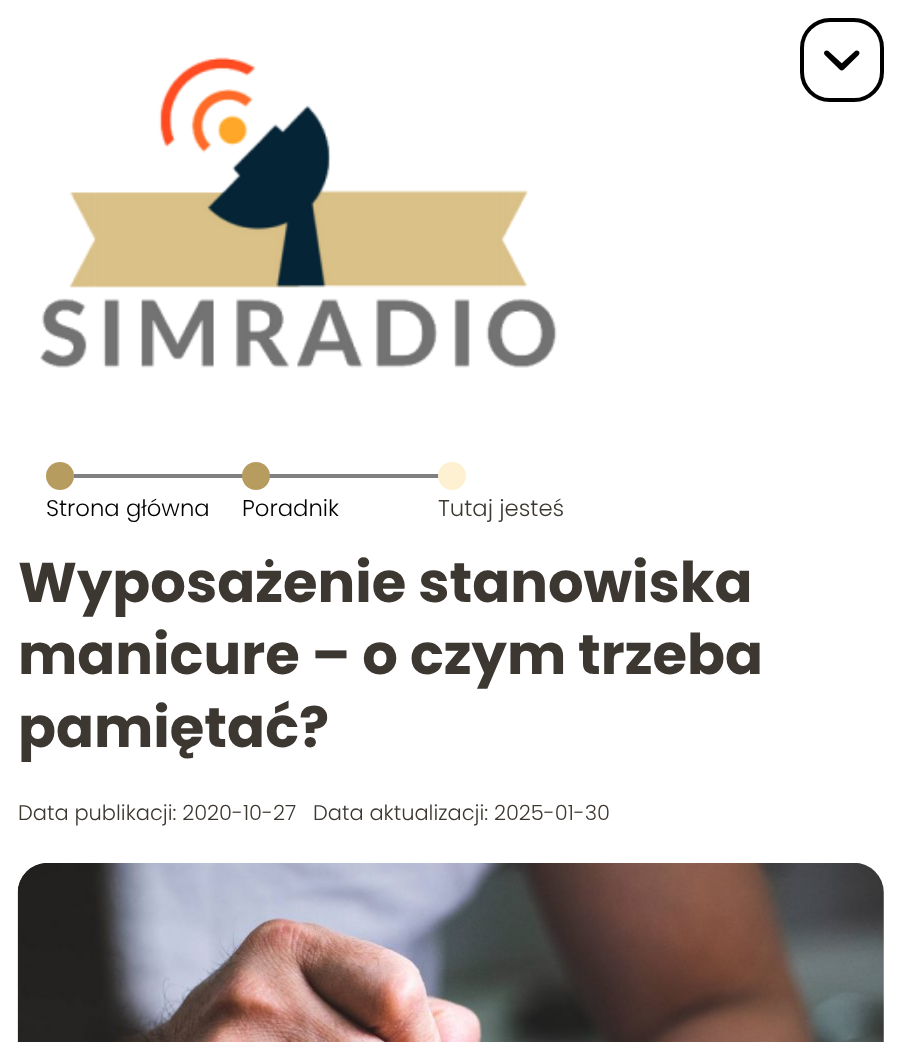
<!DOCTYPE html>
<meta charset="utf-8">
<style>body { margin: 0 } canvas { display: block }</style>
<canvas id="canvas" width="901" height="1042"></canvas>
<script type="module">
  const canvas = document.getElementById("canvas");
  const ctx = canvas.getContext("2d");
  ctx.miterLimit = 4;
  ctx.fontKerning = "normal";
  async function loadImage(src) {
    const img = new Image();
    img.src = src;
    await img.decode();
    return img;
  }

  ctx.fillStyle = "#ffffff";
  ctx.fillRect(0, 0, 901, 1042);
  ctx.drawImage(await loadImage("img1.png"), 40, 57, 517, 311);
  ctx.beginPath();
  ctx.roundRect(802, 20, 80, 80, 28);
  ctx.strokeStyle = "#000000";
  ctx.lineWidth = 4;
  ctx.stroke();
  ctx.drawImage(await loadImage("img2.png"), 824, 50, 36, 21);
  ctx.fillStyle = "#808080";
  ctx.fillRect(74, 474, 365, 4);
  ctx.fillStyle = "#b79c60";
  ctx.beginPath();
  ctx.arc(60, 476, 14, 0, Math.PI * 2);
  ctx.fill();
  ctx.font = "300 22.75px Poppins";
  ctx.fillStyle = "#000000";
  ctx.fillText("Strona główna", 46, 516);
  ctx.fillStyle = "#b79c60";
  ctx.beginPath();
  ctx.arc(256, 476, 14, 0, Math.PI * 2);
  ctx.fill();
  ctx.fillStyle = "#000000";
  ctx.fillText("Poradnik", 242, 516);
  ctx.fillStyle = "#fef1d2";
  ctx.beginPath();
  ctx.arc(452, 476, 14, 0, Math.PI * 2);
  ctx.fill();
  ctx.fillStyle = "#3d3731";
  ctx.fillText("Tutaj jesteś", 438, 516);
  ctx.font = "bold 56px Poppins";
  ctx.fillText("Wyposażenie stanowiska", 18, 602);
  ctx.fillText("manicure – o czym trzeba", 18, 674);
  ctx.fillText("pamiętać?", 18, 747);
  ctx.font = "300 21px Poppins";
  ctx.fillText("Data publikacji: 2020-10-27", 18, 820);
  ctx.fillText("Data aktualizacji: 2025-01-30", 313, 820);
  ctx.drawImage(await loadImage("img3.png"), 17, 863, 867, 179);
</script>
